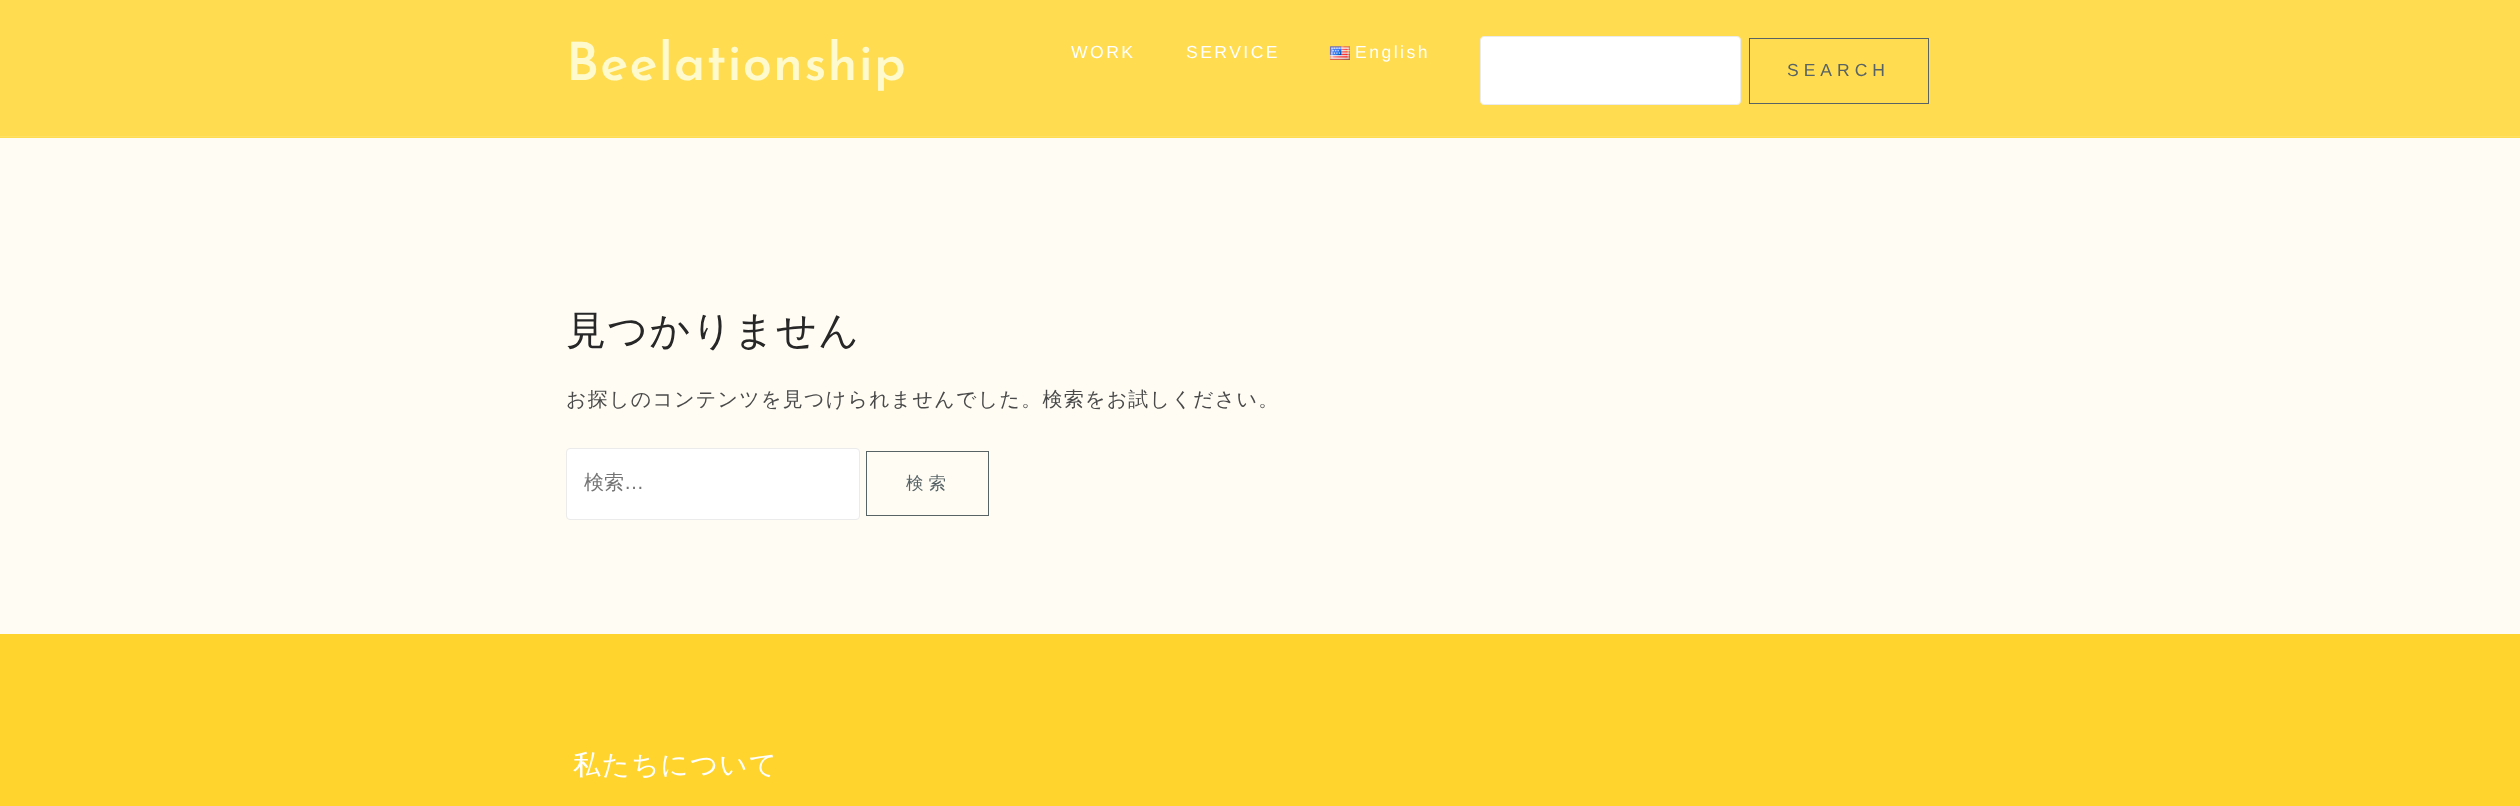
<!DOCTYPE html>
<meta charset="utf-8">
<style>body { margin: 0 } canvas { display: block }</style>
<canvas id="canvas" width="2520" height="806"></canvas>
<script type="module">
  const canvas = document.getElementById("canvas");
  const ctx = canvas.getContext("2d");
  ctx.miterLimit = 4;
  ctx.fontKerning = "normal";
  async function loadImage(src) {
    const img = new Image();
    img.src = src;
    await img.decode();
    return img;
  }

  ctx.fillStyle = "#fffcf4";
  ctx.fillRect(0, 0, 2520, 806);
  ctx.fillStyle = "#ffdc50";
  ctx.fillRect(0, 0, 2520, 138);
  ctx.fillStyle = "#ffe062";
  ctx.fillRect(0, 136, 2520, 1);
  ctx.letterSpacing = "1.25px";
  ctx.font = "600 52.5px Josefin Sans";
  ctx.fillStyle = "#fffacd";
  ctx.fillText("Beelationship", 566, 80);
  ctx.letterSpacing = "2.5px";
  ctx.font = "17.5px Liberation Sans";
  ctx.fillStyle = "#ffffff";
  ctx.fillText("WORK", 1071, 58);
  ctx.fillText("SERVICE", 1186, 58);
  ctx.drawImage(await loadImage("img1.png"), 1329, 46, 21, 14);
  ctx.fillText("English", 1355, 58);
  ctx.beginPath();
  ctx.roundRect(1480.5, 36.5, 260, 68, 3.5);
  ctx.fill();
  ctx.strokeStyle = "#ebebeb";
  ctx.stroke();
  ctx.strokeStyle = "#586365";
  ctx.strokeRect(1749.5, 38.5, 179, 65);
  ctx.letterSpacing = "5px";
  ctx.fillStyle = "#586365";
  ctx.fillText("SEARCH", 1787, 76);
  ctx.letterSpacing = "1.25px";
  ctx.font = "500 40px WenQuanYi Zen Hei";
  ctx.fillStyle = "#272727";
  ctx.fillText("見つかりません", 566, 344);
  ctx.font = "500 20px WenQuanYi Zen Hei";
  ctx.fillStyle = "#4a4a4a";
  ctx.fillText("お探しのコンテンツを見つけられませんでした。検索をお試しください。", 566, 406);
  ctx.fillStyle = "#ffffff";
  ctx.beginPath();
  ctx.roundRect(566.5, 448.5, 293, 71, 3.5);
  ctx.fill();
  ctx.strokeStyle = "#ebebeb";
  ctx.stroke();
  ctx.letterSpacing = "0px";
  ctx.fillStyle = "#757575";
  ctx.fillText("検索", 584, 489);
  ctx.font = "20px Liberation Sans";
  ctx.fillText("…", 624, 489);
  ctx.strokeStyle = "#586365";
  ctx.strokeRect(866.5, 451.5, 122, 64);
  ctx.letterSpacing = "5px";
  ctx.font = "500 17.5px WenQuanYi Zen Hei";
  ctx.fillStyle = "#586365";
  ctx.fillText("検索", 906, 489);
  ctx.fillStyle = "#ffd42d";
  ctx.fillRect(0, 634, 2520, 172);
  ctx.letterSpacing = "1.25px";
  ctx.font = "500 27.5px WenQuanYi Zen Hei";
  ctx.fillStyle = "#ffffff";
  ctx.fillText("私たちについて", 573, 774);
</script>
